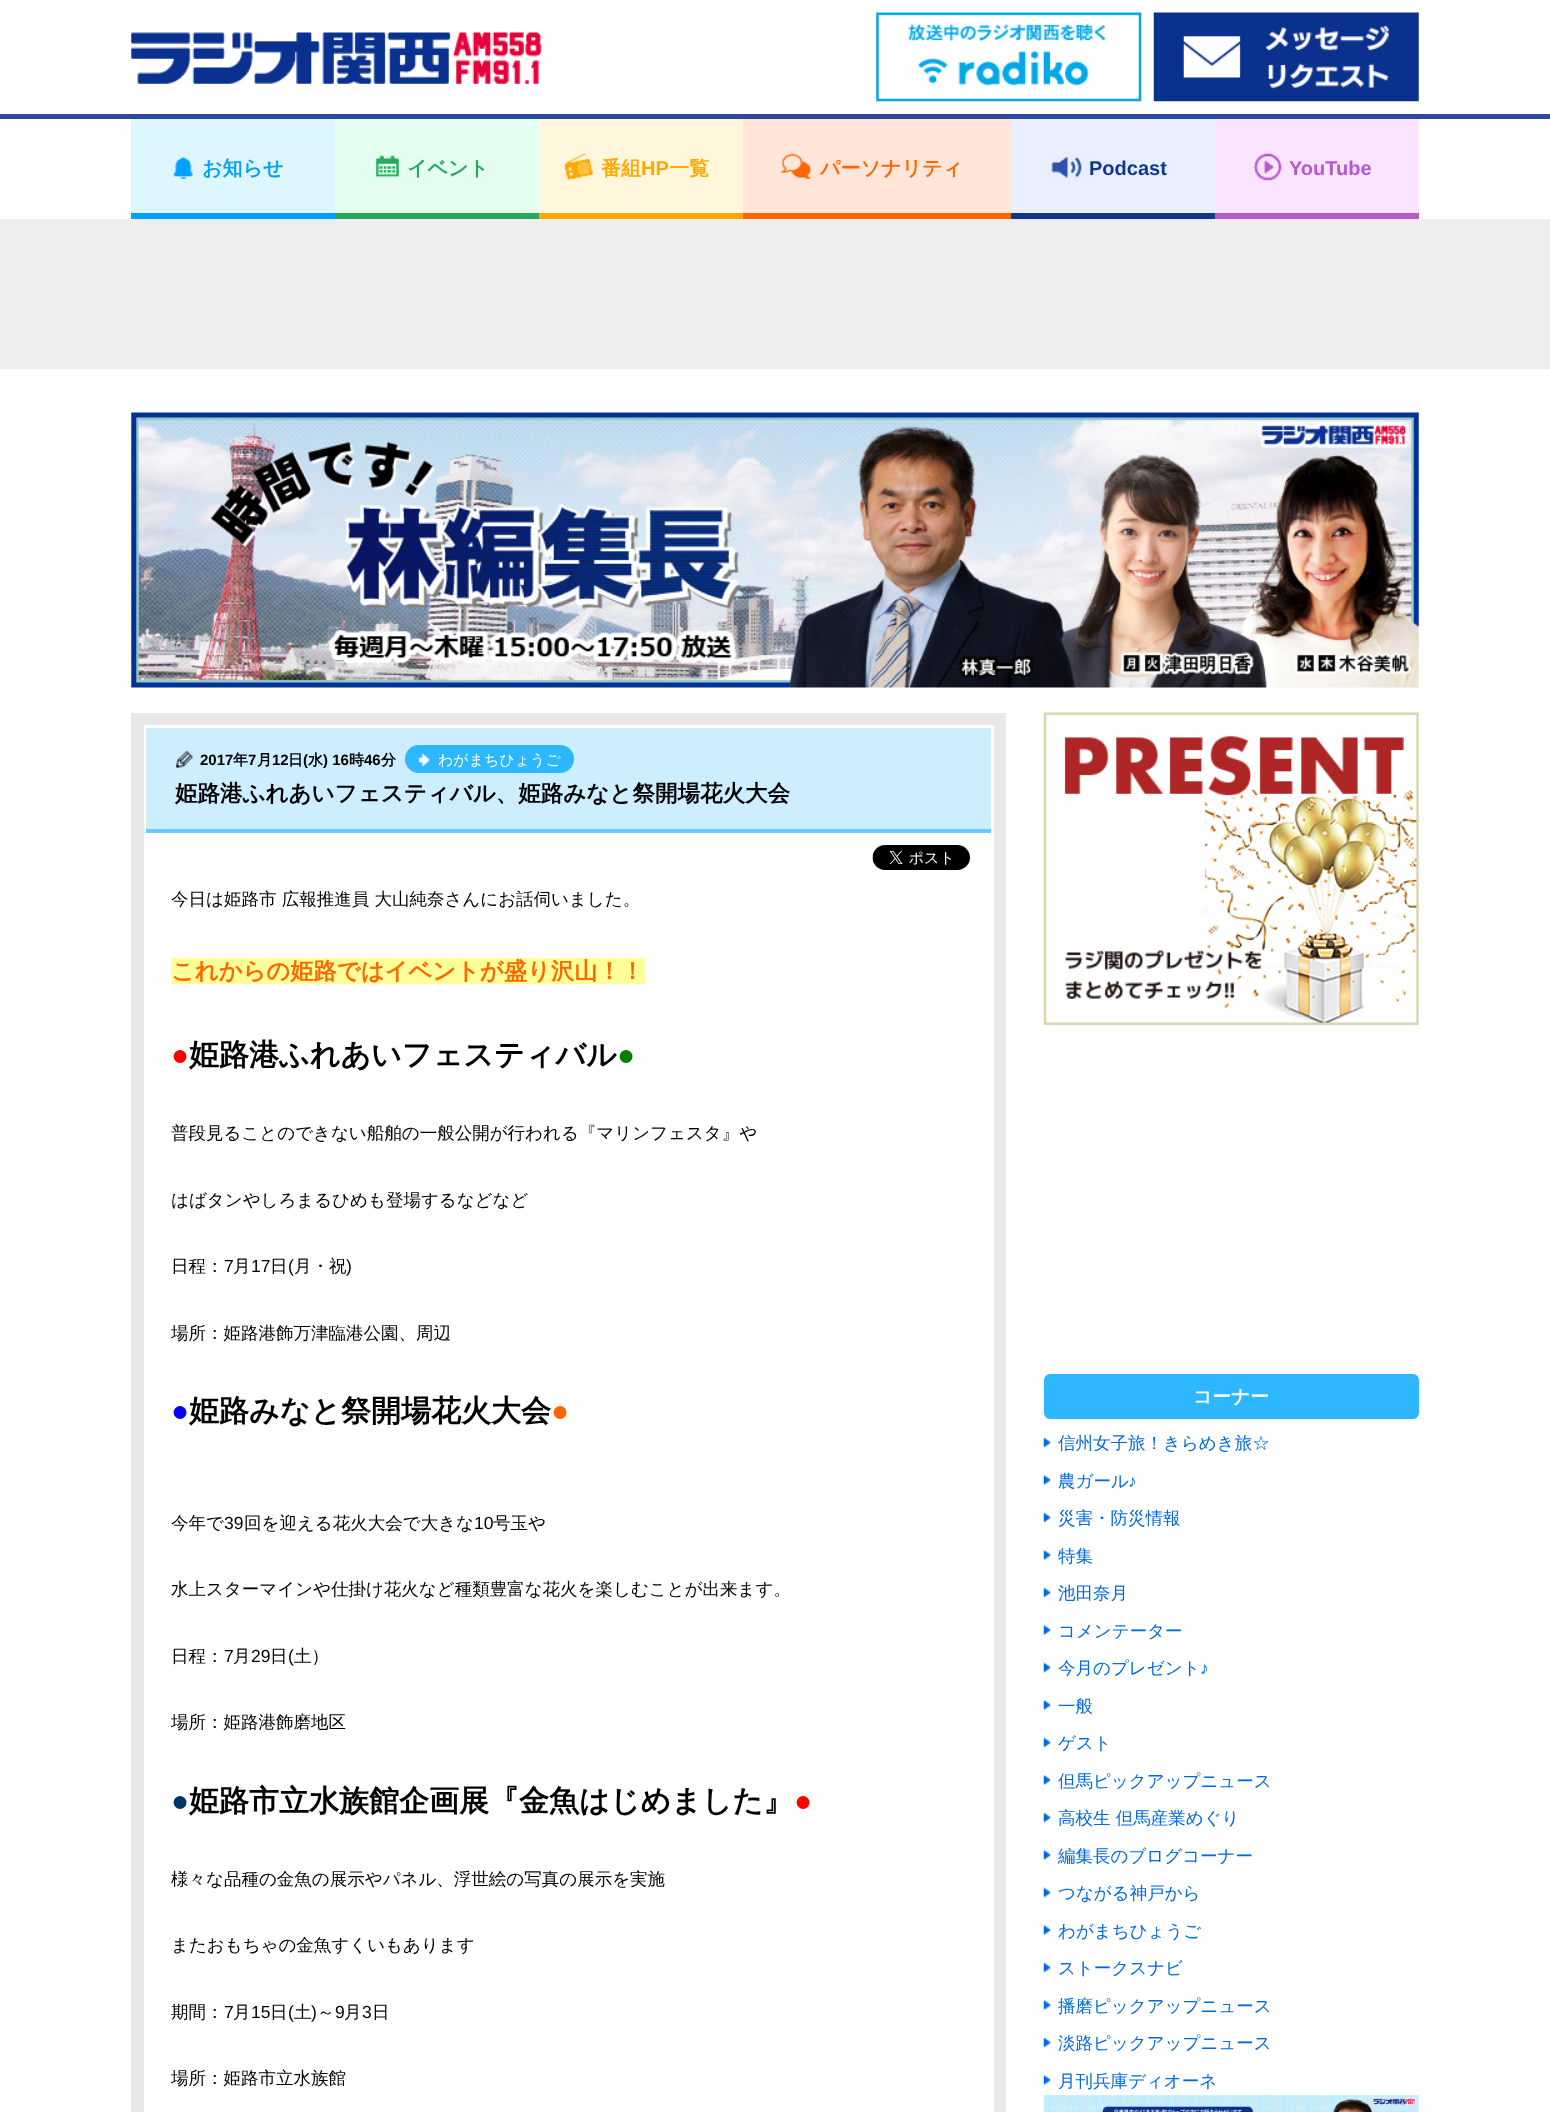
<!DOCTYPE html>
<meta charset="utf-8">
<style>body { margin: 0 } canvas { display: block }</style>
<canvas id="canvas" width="1550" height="2112"></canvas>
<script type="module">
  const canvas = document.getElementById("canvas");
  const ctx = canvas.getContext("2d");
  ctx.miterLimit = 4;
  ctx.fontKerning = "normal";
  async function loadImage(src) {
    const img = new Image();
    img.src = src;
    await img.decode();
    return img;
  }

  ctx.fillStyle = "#ffffff";
  ctx.fillRect(0, 0, 1550, 2112);
  ctx.drawImage(await loadImage("img1.png"), 876, 12, 266, 90);
  ctx.drawImage(await loadImage("img2.png"), 1153, 12, 266, 90);
  ctx.fillStyle = "#2f499a";
  ctx.fillRect(0, 114, 1550, 5);
  ctx.drawImage(await loadImage("img3.png"), 131, 32, 411, 52);
  ctx.fillStyle = "#def6ff";
  ctx.fillRect(131, 119, 204, 94);
  ctx.fillStyle = "#00a0fc";
  ctx.fillRect(131, 213, 204, 6);
  ctx.drawImage(await loadImage("img4.png"), 173, 157, 20, 22);
  ctx.font = "bold 20px WenQuanYi Zen Hei";
  ctx.fillText("お知らせ", 202, 175);
  ctx.fillStyle = "#e4ffef";
  ctx.fillRect(335, 119, 204, 94);
  ctx.fillStyle = "#25a95d";
  ctx.fillRect(335, 213, 204, 6);
  ctx.drawImage(await loadImage("img5.png"), 376, 155, 23, 23);
  ctx.fillText("イベント", 407, 175);
  ctx.fillStyle = "#fff6dc";
  ctx.fillRect(539, 119, 204, 94);
  ctx.fillStyle = "#ffa800";
  ctx.fillRect(539, 213, 204, 6);
  ctx.drawImage(await loadImage("img6.png"), 564, 153, 29, 27);
  ctx.fillText("番組", 601, 175);
  ctx.font = "bold 20px Liberation Sans";
  ctx.fillText("HP", 641, 175);
  ctx.font = "bold 20px WenQuanYi Zen Hei";
  ctx.fillText("一覧", 669, 175);
  ctx.fillStyle = "#ffe6d9";
  ctx.fillRect(743, 119, 268, 94);
  ctx.fillStyle = "#fe6600";
  ctx.fillRect(743, 213, 268, 6);
  ctx.drawImage(await loadImage("img7.png"), 781, 153, 31, 27);
  ctx.fillText("パーソナリティ", 820, 175);
  ctx.fillStyle = "#e9efff";
  ctx.fillRect(1011, 119, 204, 94);
  ctx.fillStyle = "#123591";
  ctx.fillRect(1011, 213, 204, 6);
  ctx.drawImage(await loadImage("img8.png"), 1051, 156, 31, 22);
  ctx.font = "bold 20px Liberation Sans";
  ctx.fillText("Podcast", 1089, 175);
  ctx.fillStyle = "#fae4ff";
  ctx.fillRect(1215, 119, 204, 94);
  ctx.fillStyle = "#b759ce";
  ctx.fillRect(1215, 213, 204, 6);
  ctx.drawImage(await loadImage("img9.png"), 1253, 153, 29, 28);
  ctx.fillText("YouTube", 1289, 175);
  ctx.fillStyle = "#eeeeee";
  ctx.fillRect(0, 219, 1550, 150);
  ctx.drawImage(await loadImage("img10.png"), 131, 412, 1288, 276);
  ctx.fillStyle = "#e8e8e8";
  ctx.fillRect(131, 713, 875, 1399);
  ctx.fillStyle = "#ffffff";
  ctx.fillRect(144, 725, 850, 1387);
  ctx.fillStyle = "#cdeeff";
  ctx.fillRect(146, 728, 845, 101);
  ctx.fillStyle = "#67ccff";
  ctx.fillRect(146, 829, 845, 4);
  ctx.drawImage(await loadImage("img11.png"), 176, 750, 17, 18);
  ctx.font = "bold 15px Liberation Sans";
  ctx.fillStyle = "#000000";
  ctx.fillText("2017", 200, 765);
  ctx.font = "bold 15px WenQuanYi Zen Hei";
  ctx.fillText("年", 233, 765);
  ctx.font = "bold 15px Liberation Sans";
  ctx.fillText("7", 248, 765);
  ctx.font = "bold 15px WenQuanYi Zen Hei";
  ctx.fillText("月", 257, 765);
  ctx.font = "bold 15px Liberation Sans";
  ctx.fillText("12", 272, 765);
  ctx.font = "bold 15px WenQuanYi Zen Hei";
  ctx.fillText("日", 288, 765);
  ctx.font = "bold 15px Liberation Sans";
  ctx.fillText("(", 303, 765);
  ctx.font = "bold 15px WenQuanYi Zen Hei";
  ctx.fillText("水", 308, 765);
  ctx.font = "bold 15px Liberation Sans";
  ctx.fillText(") 16", 323, 765);
  ctx.font = "bold 15px WenQuanYi Zen Hei";
  ctx.fillText("時", 349, 765);
  ctx.font = "bold 15px Liberation Sans";
  ctx.fillText("46", 364, 765);
  ctx.font = "bold 15px WenQuanYi Zen Hei";
  ctx.fillText("分", 381, 765);
  ctx.fillStyle = "#2cb7fe";
  ctx.beginPath();
  ctx.roundRect(405, 745, 169, 28, 14);
  ctx.fill();
  ctx.drawImage(await loadImage("img12.png"), 418, 753, 12, 14);
  ctx.font = "500 15px WenQuanYi Zen Hei";
  ctx.fillStyle = "#ffffff";
  ctx.fillText("わがまちひょうご", 438, 765);
  ctx.font = "bold 22.5px WenQuanYi Zen Hei";
  ctx.fillStyle = "#000000";
  ctx.fillText("姫路港ふれあいフェスティバル、姫路みなと祭開場花火大会", 175, 801);
  ctx.drawImage(await loadImage("img13.png"), 872, 845, 98, 25);
  ctx.font = "500 17.5px WenQuanYi Zen Hei";
  ctx.fillText("今日は姫路市 広報推進員 大山純奈さんにお話伺いました。", 171, 905);
  ctx.fillStyle = "#ffff99";
  ctx.fillRect(171, 958, 474, 26);
  ctx.font = "bold 23.3px WenQuanYi Zen Hei";
  ctx.fillStyle = "#fe6600";
  ctx.fillText("これからの姫路ではイベントが盛り沢山！！", 171, 979);
  ctx.font = "bold 30px Liberation Sans";
  ctx.fillStyle = "#ff0000";
  ctx.fillText("●", 171, 1065);
  ctx.font = "bold 30px WenQuanYi Zen Hei";
  ctx.fillStyle = "#000000";
  ctx.fillText("姫路港ふれあいフェスティバル", 189, 1065);
  ctx.font = "bold 30px Liberation Sans";
  ctx.fillStyle = "#008000";
  ctx.fillText("●", 617, 1065);
  ctx.font = "500 17.5px WenQuanYi Zen Hei";
  ctx.fillStyle = "#000000";
  ctx.fillText("普段見ることのできない船舶の一般公開が行われる『マリンフェスタ』や", 171, 1139);
  ctx.fillText("はばタンやしろまるひめも登場するなどなど", 171, 1206);
  ctx.fillText("日程：", 171, 1272);
  ctx.font = "17.5px Liberation Sans";
  ctx.fillText("7", 224, 1272);
  ctx.font = "500 17.5px WenQuanYi Zen Hei";
  ctx.fillText("月", 233, 1272);
  ctx.font = "17.5px Liberation Sans";
  ctx.fillText("17", 251, 1272);
  ctx.font = "500 17.5px WenQuanYi Zen Hei";
  ctx.fillText("日", 270, 1272);
  ctx.font = "17.5px Liberation Sans";
  ctx.fillText("(", 288, 1272);
  ctx.font = "500 17.5px WenQuanYi Zen Hei";
  ctx.fillText("月・祝", 294, 1272);
  ctx.font = "17.5px Liberation Sans";
  ctx.fillText(")", 346, 1272);
  ctx.font = "500 17.5px WenQuanYi Zen Hei";
  ctx.fillText("場所：姫路港飾万津臨港公園、周辺", 171, 1339);
  ctx.font = "bold 30px Liberation Sans";
  ctx.fillStyle = "#0000ff";
  ctx.fillText("●", 171, 1421);
  ctx.font = "bold 30px WenQuanYi Zen Hei";
  ctx.fillStyle = "#000000";
  ctx.fillText("姫路みなと祭開場花火大会", 189, 1421);
  ctx.font = "bold 30px Liberation Sans";
  ctx.fillStyle = "#fe6600";
  ctx.fillText("●", 551, 1421);
  ctx.font = "500 17.5px WenQuanYi Zen Hei";
  ctx.fillStyle = "#000000";
  ctx.fillText("今年で", 171, 1529);
  ctx.font = "17.5px Liberation Sans";
  ctx.fillText("39", 224, 1529);
  ctx.font = "500 17.5px WenQuanYi Zen Hei";
  ctx.fillText("回を迎える花火大会で大きな", 244, 1529);
  ctx.font = "17.5px Liberation Sans";
  ctx.fillText("10", 474, 1529);
  ctx.font = "500 17.5px WenQuanYi Zen Hei";
  ctx.fillText("号玉や", 493, 1529);
  ctx.fillText("水上スターマインや仕掛け花火など種類豊富な花火を楽しむことが出来ます。", 171, 1595);
  ctx.fillText("日程：", 171, 1662);
  ctx.font = "17.5px Liberation Sans";
  ctx.fillText("7", 224, 1662);
  ctx.font = "500 17.5px WenQuanYi Zen Hei";
  ctx.fillText("月", 233, 1662);
  ctx.font = "17.5px Liberation Sans";
  ctx.fillText("29", 251, 1662);
  ctx.font = "500 17.5px WenQuanYi Zen Hei";
  ctx.fillText("日", 270, 1662);
  ctx.font = "17.5px Liberation Sans";
  ctx.fillText("(", 288, 1662);
  ctx.font = "500 17.5px WenQuanYi Zen Hei";
  ctx.fillText("土）", 294, 1662);
  ctx.fillText("場所：姫路港飾磨地区", 171, 1728);
  ctx.font = "bold 30px Liberation Sans";
  ctx.fillStyle = "#003366";
  ctx.fillText("●", 171, 1811);
  ctx.font = "bold 30px WenQuanYi Zen Hei";
  ctx.fillStyle = "#000000";
  ctx.fillText("姫路市立水族館企画展『金魚はじめました』", 189, 1811);
  ctx.font = "bold 30px Liberation Sans";
  ctx.fillStyle = "#ff0000";
  ctx.fillText("●", 794, 1811);
  ctx.font = "500 17.5px WenQuanYi Zen Hei";
  ctx.fillStyle = "#000000";
  ctx.fillText("様々な品種の金魚の展示やパネル、浮世絵の写真の展示を実施", 171, 1885);
  ctx.fillText("またおもちゃの金魚すくいもあります", 171, 1951);
  ctx.fillText("期間：", 171, 2018);
  ctx.font = "17.5px Liberation Sans";
  ctx.fillText("7", 224, 2018);
  ctx.font = "500 17.5px WenQuanYi Zen Hei";
  ctx.fillText("月", 233, 2018);
  ctx.font = "17.5px Liberation Sans";
  ctx.fillText("15", 251, 2018);
  ctx.font = "500 17.5px WenQuanYi Zen Hei";
  ctx.fillText("日", 270, 2018);
  ctx.font = "17.5px Liberation Sans";
  ctx.fillText("(", 288, 2018);
  ctx.font = "500 17.5px WenQuanYi Zen Hei";
  ctx.fillText("土", 294, 2018);
  ctx.font = "17.5px Liberation Sans";
  ctx.fillText(")", 311, 2018);
  ctx.font = "500 17.5px WenQuanYi Zen Hei";
  ctx.fillText("～", 317, 2018);
  ctx.font = "17.5px Liberation Sans";
  ctx.fillText("9", 335, 2018);
  ctx.font = "500 17.5px WenQuanYi Zen Hei";
  ctx.fillText("月", 344, 2018);
  ctx.font = "17.5px Liberation Sans";
  ctx.fillText("3", 362, 2018);
  ctx.font = "500 17.5px WenQuanYi Zen Hei";
  ctx.fillText("日", 372, 2018);
  ctx.fillText("場所：姫路市立水族館", 171, 2084);
  ctx.drawImage(await loadImage("img14.png"), 1043, 712, 376, 313);
  ctx.fillStyle = "#2cb7fe";
  ctx.beginPath();
  ctx.roundRect(1044, 1374, 375, 45, 6);
  ctx.fill();
  ctx.font = "bold 18.75px WenQuanYi Zen Hei";
  ctx.fillStyle = "#ffffff";
  ctx.fillText("コーナー", 1193, 1403);
  ctx.drawImage(await loadImage("img15.png"), 1043, 1437, 9, 11);
  ctx.font = "500 17.5px WenQuanYi Zen Hei";
  ctx.fillStyle = "#0069e0";
  ctx.fillText("信州女子旅！きらめき旅☆", 1058, 1449);
  ctx.drawImage(await loadImage("img16.png"), 1043, 1475, 9, 10);
  ctx.fillText("農ガール", 1058, 1487);
  ctx.font = "17.5px Liberation Sans";
  ctx.fillText("♪", 1128, 1487);
  ctx.drawImage(await loadImage("img15.png"), 1043, 1512, 9, 11);
  ctx.font = "500 17.5px WenQuanYi Zen Hei";
  ctx.fillText("災害・防災情報", 1058, 1524);
  ctx.drawImage(await loadImage("img16.png"), 1043, 1550, 9, 10);
  ctx.fillText("特集", 1058, 1562);
  ctx.drawImage(await loadImage("img15.png"), 1043, 1587, 9, 11);
  ctx.fillText("池田奈月", 1058, 1599);
  ctx.drawImage(await loadImage("img16.png"), 1043, 1625, 9, 10);
  ctx.fillText("コメンテーター", 1058, 1637);
  ctx.drawImage(await loadImage("img15.png"), 1043, 1662, 9, 11);
  ctx.fillText("今月のプレゼント", 1058, 1674);
  ctx.font = "17.5px Liberation Sans";
  ctx.fillText("♪", 1200, 1674);
  ctx.drawImage(await loadImage("img16.png"), 1043, 1700, 9, 10);
  ctx.font = "500 17.5px WenQuanYi Zen Hei";
  ctx.fillText("一般", 1058, 1712);
  ctx.drawImage(await loadImage("img15.png"), 1043, 1737, 9, 11);
  ctx.fillText("ゲスト", 1058, 1749);
  ctx.drawImage(await loadImage("img16.png"), 1043, 1775, 9, 10);
  ctx.fillText("但馬ピックアップニュース", 1058, 1787);
  ctx.drawImage(await loadImage("img15.png"), 1043, 1812, 9, 11);
  ctx.fillText("高校生 但馬産業めぐり", 1058, 1824);
  ctx.drawImage(await loadImage("img16.png"), 1043, 1850, 9, 10);
  ctx.fillText("編集長のブログコーナー", 1058, 1862);
  ctx.drawImage(await loadImage("img15.png"), 1043, 1887, 9, 11);
  ctx.fillText("つながる神戸から", 1058, 1899);
  ctx.drawImage(await loadImage("img16.png"), 1043, 1925, 9, 10);
  ctx.fillText("わがまちひょうご", 1058, 1937);
  ctx.drawImage(await loadImage("img15.png"), 1043, 1962, 9, 11);
  ctx.fillText("ストークスナビ", 1058, 1974);
  ctx.drawImage(await loadImage("img16.png"), 1043, 2000, 9, 10);
  ctx.fillText("播磨ピックアップニュース", 1058, 2012);
  ctx.drawImage(await loadImage("img15.png"), 1043, 2037, 9, 11);
  ctx.fillText("淡路ピックアップニュース", 1058, 2049);
  ctx.drawImage(await loadImage("img16.png"), 1043, 2075, 9, 10);
  ctx.fillText("月刊兵庫ディオーネ", 1058, 2087);
  ctx.drawImage(await loadImage("img17.png"), 1043, 2095, 376, 17);
</script>
